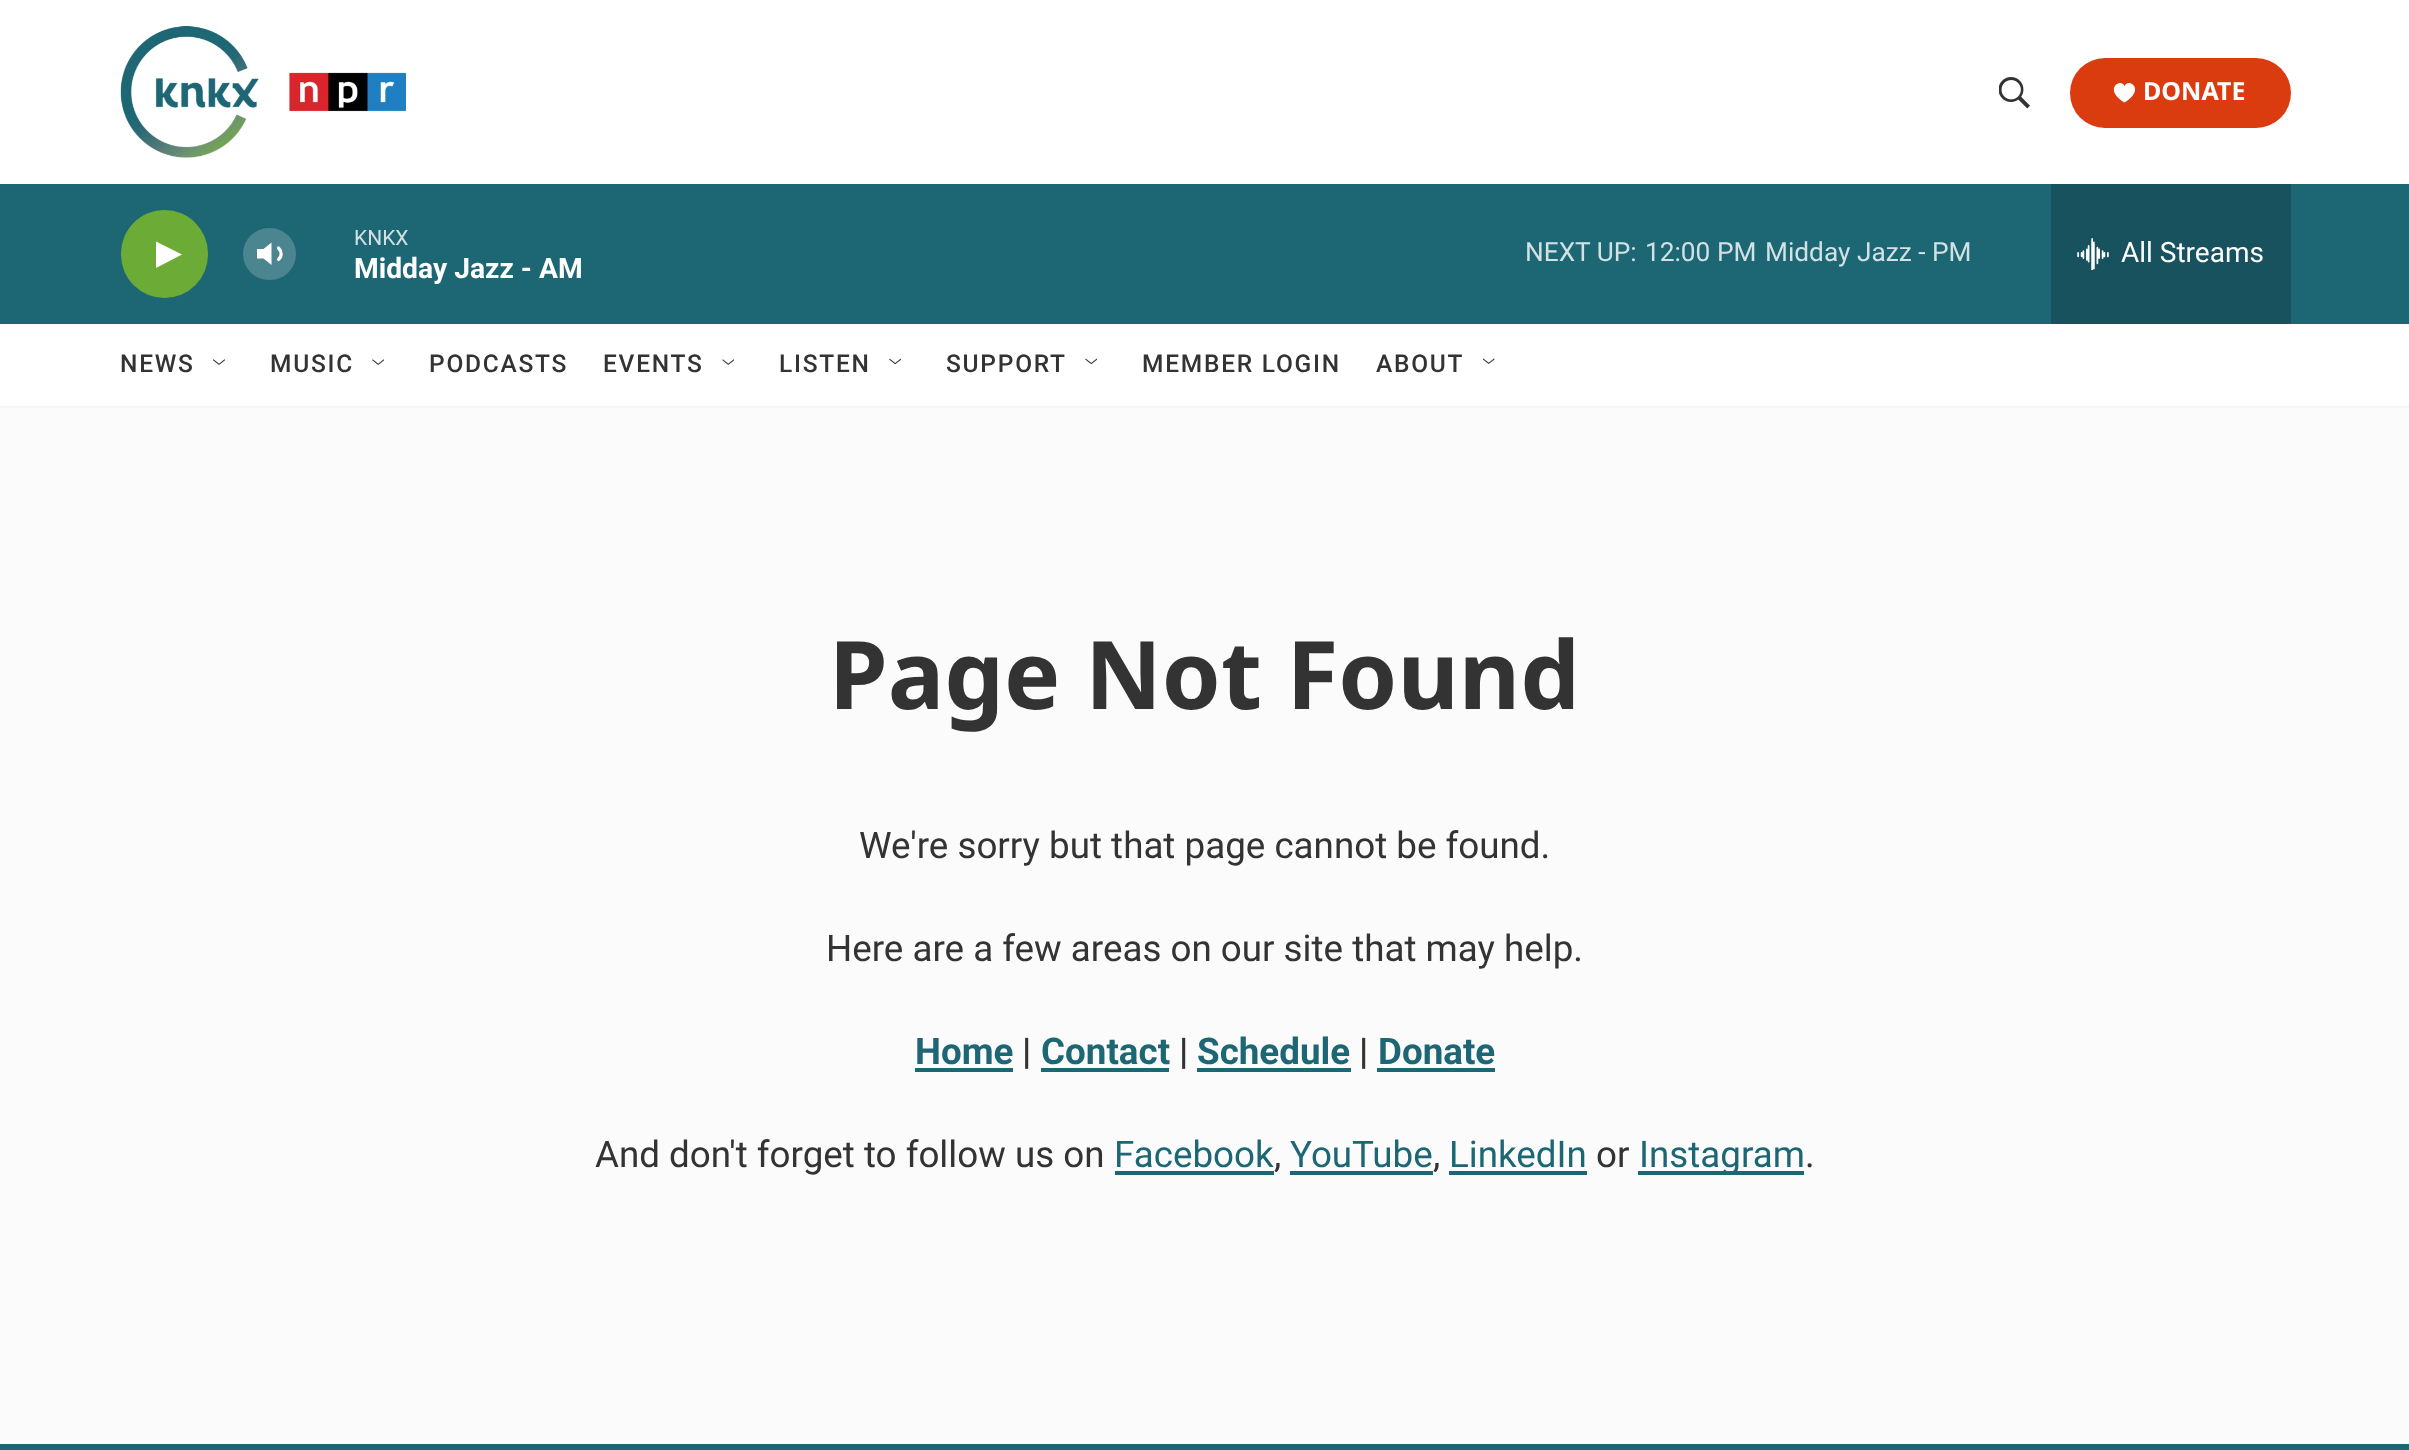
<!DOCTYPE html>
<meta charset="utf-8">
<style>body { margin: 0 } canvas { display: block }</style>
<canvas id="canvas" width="2409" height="1450"></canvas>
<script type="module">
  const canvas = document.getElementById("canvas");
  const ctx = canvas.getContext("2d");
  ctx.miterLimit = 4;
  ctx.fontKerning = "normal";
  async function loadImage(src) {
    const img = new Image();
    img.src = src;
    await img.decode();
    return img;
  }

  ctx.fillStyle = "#fbfbfb";
  ctx.fillRect(0, 0, 2409, 1450);
  ctx.fillStyle = "#ffffff";
  ctx.fillRect(0, 0, 2409, 406);
  ctx.fillStyle = "#f5f5f5";
  ctx.fillRect(0, 406, 2409, 2);
  ctx.drawImage(await loadImage("img1.png"), 120, 26, 286, 132);
  ctx.drawImage(await loadImage("img2.png"), 1999, 77, 31, 32);
  ctx.fillStyle = "#db3c0f";
  ctx.beginPath();
  ctx.roundRect(2070, 58, 221, 70, 35);
  ctx.fill();
  ctx.fillStyle = "#ffffff";
  ctx.beginPath();
  ctx.moveTo(2124.5, 86);
  ctx.bezierCurveTo(2121, 77, 2102.5, 89, 2124.5, 102.5);
  ctx.bezierCurveTo(2146.5, 89, 2128, 77, 2124.5, 86);
  ctx.closePath();
  ctx.fill();
  ctx.font = "bold 25px Noto Sans";
  ctx.fillText("DONATE", 2143, 100);
  ctx.fillStyle = "#1d6775";
  ctx.fillRect(0, 184, 2409, 140);
  ctx.fillStyle = "#6cab36";
  ctx.beginPath();
  ctx.roundRect(121, 210, 87, 88, 43.5);
  ctx.fill();
  ctx.fillStyle = "#ffffff";
  ctx.beginPath();
  ctx.moveTo(156, 241.5);
  ctx.lineTo(182, 254.5);
  ctx.lineTo(156, 268);
  ctx.closePath();
  ctx.fill();
  ctx.beginPath();
  ctx.moveTo(271.5, 242.5);
  ctx.lineTo(263.5, 249);
  ctx.lineTo(257, 249);
  ctx.lineTo(257, 258.5);
  ctx.lineTo(263.5, 258.5);
  ctx.lineTo(271.5, 265);
  ctx.closePath();
  ctx.fill();
  ctx.beginPath();
  ctx.moveTo(278.5, 248);
  ctx.bezierCurveTo(282, 251.5, 282, 256.5, 278.5, 259.5);
  ctx.strokeStyle = "#ffffff";
  ctx.lineWidth = 3.2;
  ctx.lineCap = "round";
  ctx.lineJoin = "round";
  ctx.stroke();
  ctx.fillStyle = "rgba(255, 255, 255, 0.2)";
  ctx.beginPath();
  ctx.roundRect(243, 228, 53, 52, 26);
  ctx.fill();
  ctx.font = "21px Roboto";
  ctx.fillStyle = "#d2e1e3";
  ctx.fillText("KNKX", 354, 245);
  ctx.font = "bold 28.25px Roboto";
  ctx.fillStyle = "#ffffff";
  ctx.fillText("Midday Jazz - AM", 354, 278);
  ctx.font = "26.25px Roboto";
  ctx.fillStyle = "#d2e1e3";
  ctx.fillText("NEXT UP:", 1525, 261);
  ctx.fillText("12:00 PM", 1645, 261);
  ctx.fillText("Midday Jazz - PM", 1765, 261);
  ctx.fillStyle = "#17525e";
  ctx.fillRect(2051, 184, 240, 140);
  ctx.drawImage(await loadImage("img3.png"), 2077, 238, 32, 32);
  ctx.font = "28px Roboto";
  ctx.fillStyle = "#ffffff";
  ctx.fillText("All Streams", 2121, 262);
  ctx.letterSpacing = "1.75px";
  ctx.font = "500 24.5px Roboto";
  ctx.fillStyle = "#333333";
  ctx.fillText("NEWS", 120, 372);
  ctx.drawImage(await loadImage("img4.png"), 213, 359, 12, 6);
  ctx.fillText("MUSIC", 270, 372);
  ctx.drawImage(await loadImage("img5.png"), 372, 359, 12, 6);
  ctx.fillText("PODCASTS", 429, 372);
  ctx.fillText("EVENTS", 603, 372);
  ctx.drawImage(await loadImage("img6.png"), 722, 359, 13, 6);
  ctx.fillText("LISTEN", 779, 372);
  ctx.drawImage(await loadImage("img7.png"), 889, 358, 12, 7);
  ctx.fillText("SUPPORT", 946, 372);
  ctx.drawImage(await loadImage("img8.png"), 1085, 358, 13, 7);
  ctx.fillText("MEMBER LOGIN", 1142, 372);
  ctx.fillText("ABOUT", 1376, 372);
  ctx.drawImage(await loadImage("img9.png"), 1482, 358, 13, 6);
  ctx.letterSpacing = "0px";
  ctx.font = "bold 94.5px Noto Sans";
  ctx.fillText("Page Not Found", 829, 709);
  ctx.font = "36.75px Roboto";
  ctx.fillText("We're sorry but that page cannot be found.", 859, 858);
  ctx.fillText("Here are a few areas on our site that may help.", 826, 961);
  ctx.font = "bold 36.75px Roboto";
  ctx.fillStyle = "#1d6775";
  ctx.fillText("Home", 915, 1064);
  ctx.fillRect(915, 1068, 98, 4);
  ctx.fillStyle = "#333333";
  ctx.fillText("|", 1022, 1064);
  ctx.fillStyle = "#1d6775";
  ctx.fillText("Contact", 1041, 1064);
  ctx.fillRect(1041, 1068, 128, 4);
  ctx.fillStyle = "#333333";
  ctx.fillText("|", 1179, 1064);
  ctx.fillStyle = "#1d6775";
  ctx.fillText("Schedule", 1197, 1064);
  ctx.fillRect(1197, 1068, 154, 4);
  ctx.fillStyle = "#333333";
  ctx.fillText("|", 1359, 1064);
  ctx.fillStyle = "#1d6775";
  ctx.fillText("Donate", 1378, 1064);
  ctx.fillRect(1377, 1068, 118, 4);
  ctx.font = "36.75px Roboto";
  ctx.fillStyle = "#333333";
  ctx.fillText("And don't forget to follow us on", 595, 1167);
  ctx.fillStyle = "#1d6775";
  ctx.fillText("Facebook", 1114, 1167);
  ctx.fillRect(1115, 1171, 159, 4);
  ctx.fillStyle = "#333333";
  ctx.fillText(",", 1274, 1167);
  ctx.fillStyle = "#1d6775";
  ctx.fillText("YouTube", 1290, 1167);
  ctx.fillRect(1290, 1171, 143, 4);
  ctx.fillStyle = "#333333";
  ctx.fillText(",", 1433, 1167);
  ctx.fillStyle = "#1d6775";
  ctx.fillText("LinkedIn", 1449, 1167);
  ctx.fillRect(1449, 1171, 138, 4);
  ctx.fillStyle = "#333333";
  ctx.fillText("or", 1596, 1167);
  ctx.fillStyle = "#1d6775";
  ctx.fillRect(1638, 1171, 166, 4);
  ctx.fillText("Instagram", 1639, 1167);
  ctx.fillStyle = "#333333";
  ctx.fillText(".", 1805, 1167);
  ctx.fillStyle = "#1d6775";
  ctx.fillRect(0, 1444, 2409, 6);
</script>
